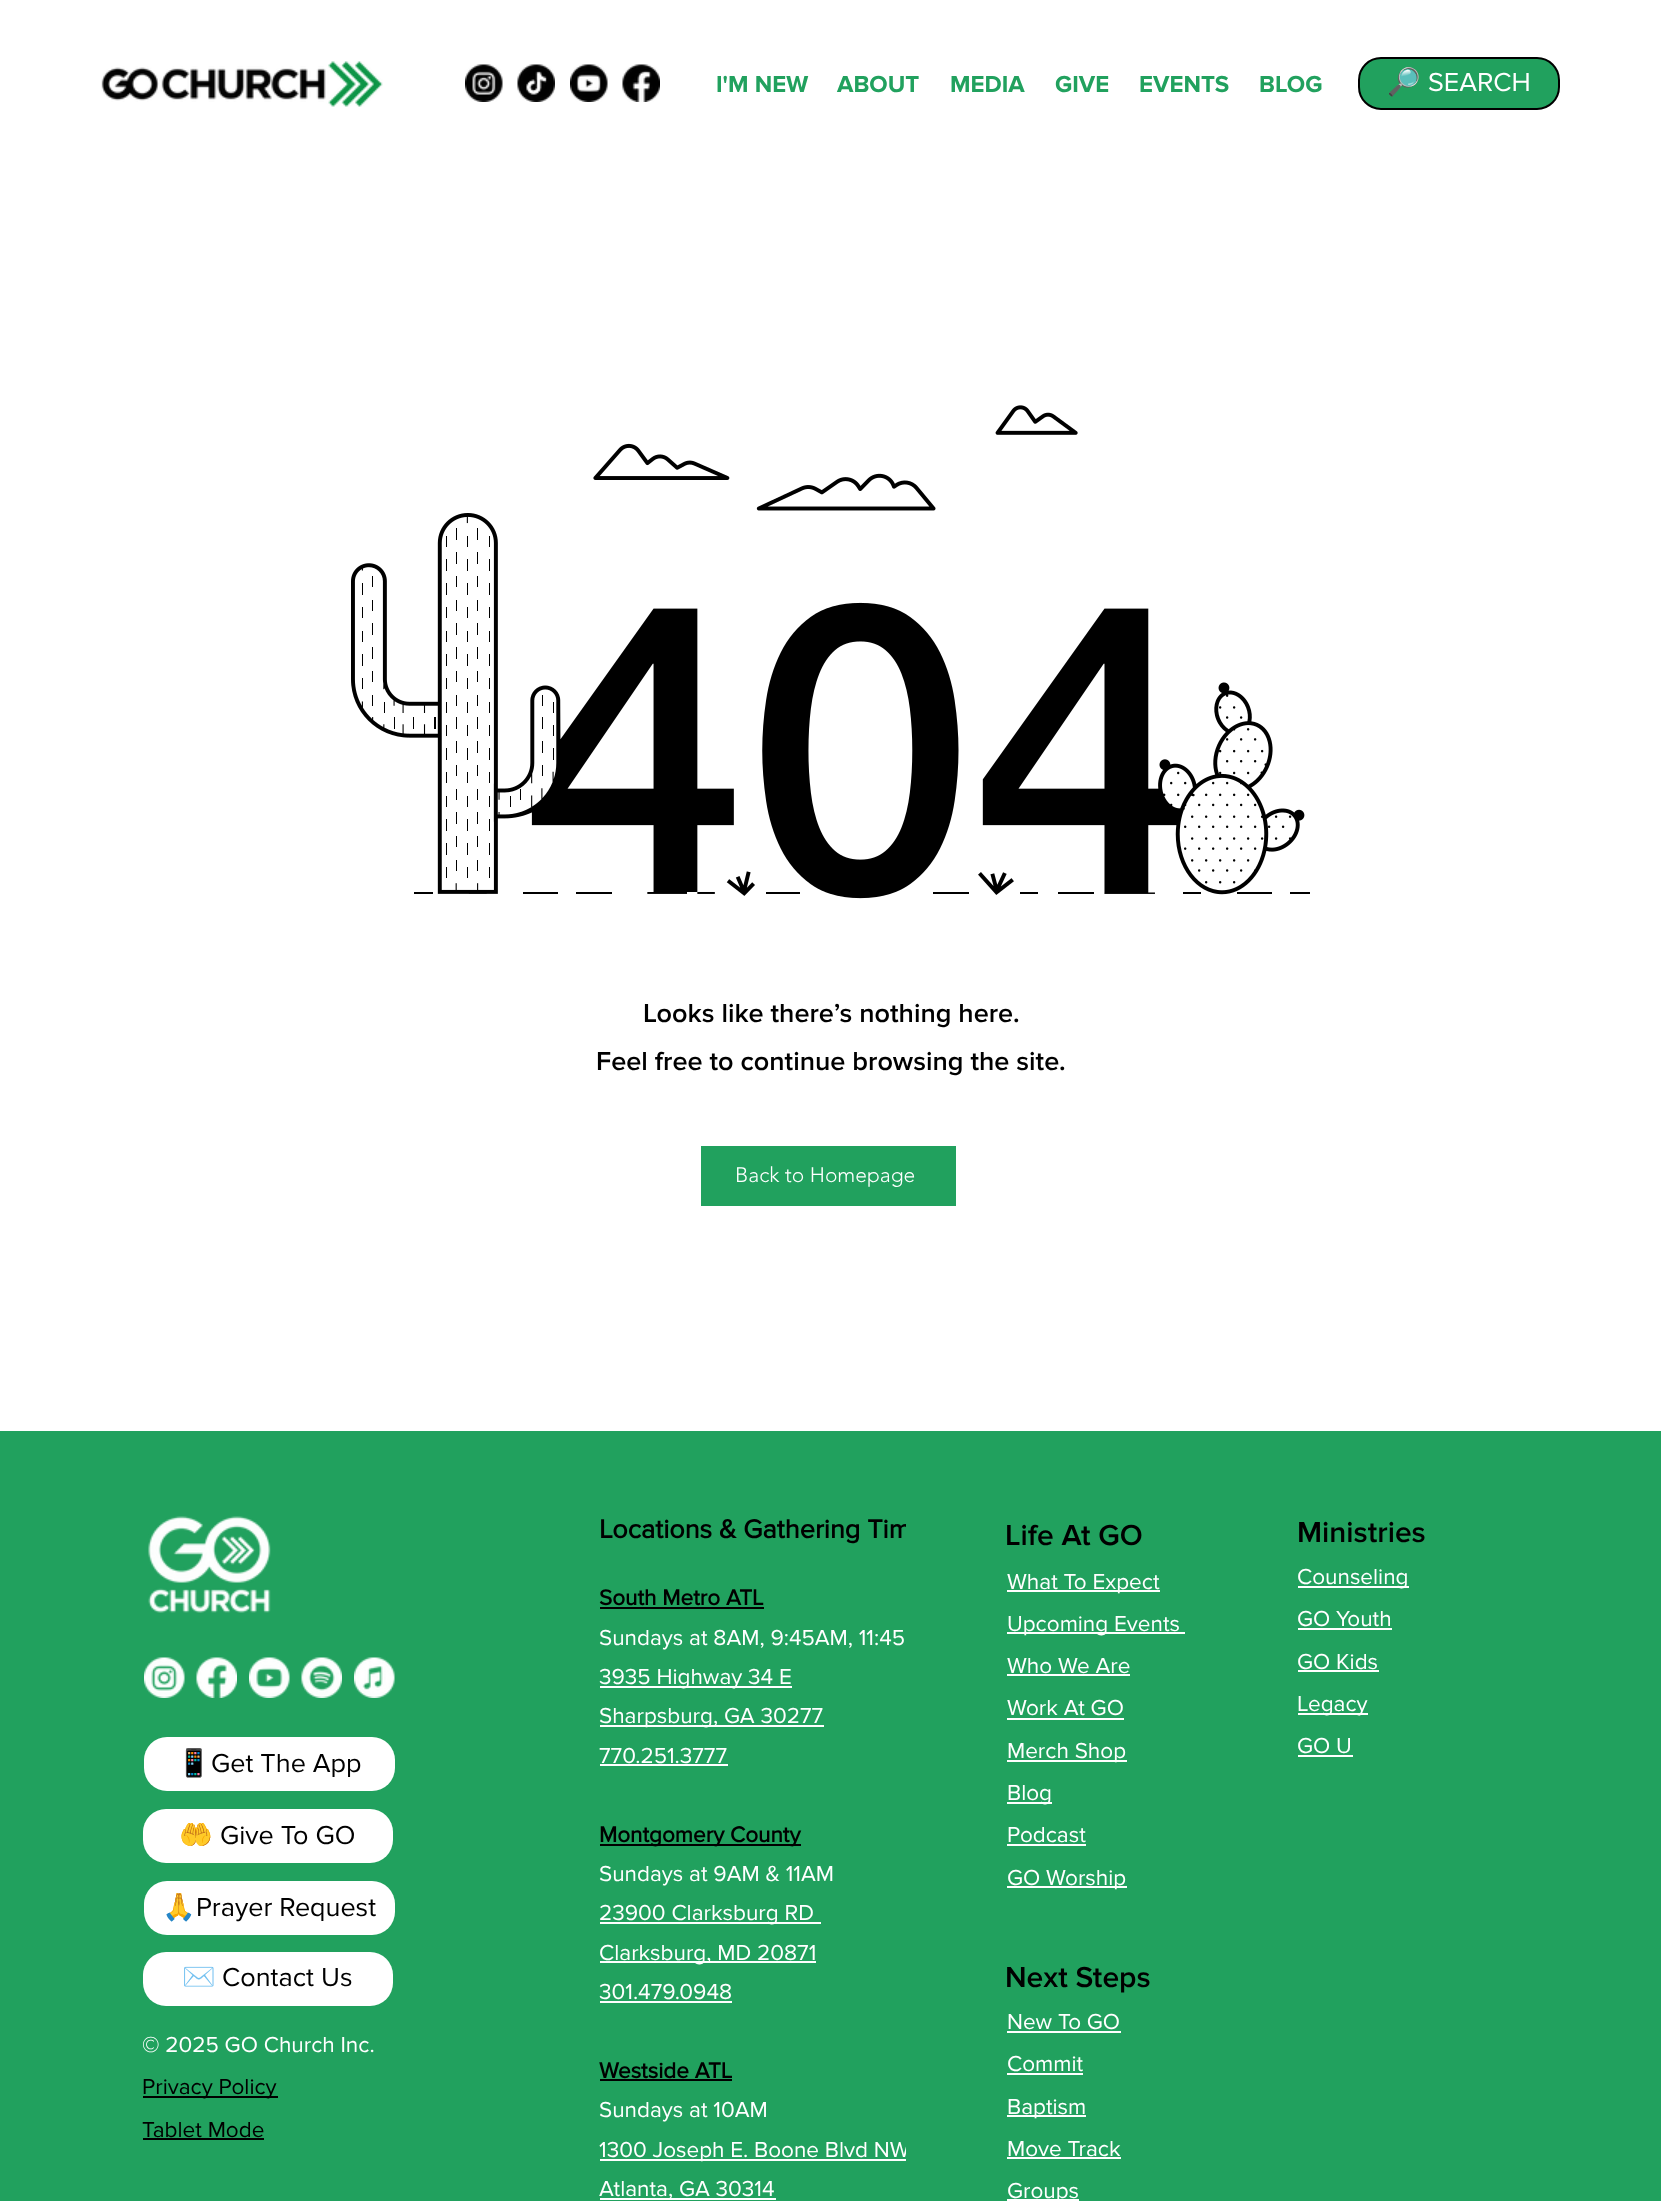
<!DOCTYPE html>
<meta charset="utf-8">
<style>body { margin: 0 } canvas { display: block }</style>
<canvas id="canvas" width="1661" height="2201"></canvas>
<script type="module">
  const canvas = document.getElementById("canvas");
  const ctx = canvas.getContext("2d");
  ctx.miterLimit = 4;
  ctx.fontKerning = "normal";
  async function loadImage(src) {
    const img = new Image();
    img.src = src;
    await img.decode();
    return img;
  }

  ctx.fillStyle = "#ffffff";
  ctx.fillRect(0, 0, 1661, 2201);
  ctx.drawImage(await loadImage("img1.png"), 101, 61, 282, 46);
  ctx.drawImage(await loadImage("img2.png"), 465, 64, 38, 38);
  ctx.drawImage(await loadImage("img3.png"), 517, 64, 38, 38);
  ctx.drawImage(await loadImage("img4.png"), 570, 64, 38, 38);
  ctx.drawImage(await loadImage("img5.png"), 622, 64, 38, 38);
  ctx.font = "bold 24px 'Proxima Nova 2'";
  ctx.fillStyle = "#21a15e";
  ctx.fillText("I'M NEW", 716, 92);
  ctx.fillText("ABOUT", 837, 92);
  ctx.fillText("MEDIA", 950, 92);
  ctx.fillText("GIVE", 1055, 92);
  ctx.fillText("EVENTS", 1139, 92);
  ctx.fillText("BLOG", 1259, 92);
  ctx.beginPath();
  ctx.roundRect(1359, 58, 200, 51, 22);
  ctx.fill();
  ctx.strokeStyle = "#000000";
  ctx.lineWidth = 2;
  ctx.stroke();
  ctx.font = "27px Noto Color Emoji";
  ctx.fillStyle = "#ffffff";
  ctx.fillText("🔎", 1387, 91);
  ctx.font = "27px Proxima Nova";
  ctx.fillText("SEARCH", 1428, 91);
  ctx.drawImage(await loadImage("img6.png"), 351, 405, 959, 494);
  ctx.font = "600 27px Proxima Nova";
  ctx.fillStyle = "#000000";
  ctx.fillText("Looks like there’s nothing here.", 643, 1022);
  ctx.fillText("Feel free to continue browsing the site.", 596, 1070);
  ctx.fillStyle = "#21a15e";
  ctx.fillRect(701, 1146, 255, 60);
  ctx.font = "300 21px 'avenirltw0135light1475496'";
  ctx.fillStyle = "#ffffff";
  ctx.fillText("Back to Homepage", 735, 1182);
  ctx.fillStyle = "#21a15e";
  ctx.fillRect(0, 1431, 1661, 770);
  ctx.drawImage(await loadImage("img7.png"), 148, 1516, 123, 97);
  ctx.drawImage(await loadImage("img8.png"), 144, 1657, 41, 41);
  ctx.drawImage(await loadImage("img9.png"), 196, 1657, 41, 41);
  ctx.drawImage(await loadImage("img10.png"), 249, 1657, 41, 41);
  ctx.drawImage(await loadImage("img11.png"), 301, 1657, 41, 41);
  ctx.drawImage(await loadImage("img12.png"), 354, 1657, 41, 41);
  ctx.fillStyle = "#ffffff";
  ctx.beginPath();
  ctx.roundRect(144, 1737, 251, 54, 23);
  ctx.fill();
  ctx.font = "27px Noto Color Emoji";
  ctx.fillStyle = "#000000";
  ctx.fillText("📱", 177, 1772);
  ctx.font = "27px Proxima Nova";
  ctx.fillText("Get The App", 211, 1772);
  ctx.fillStyle = "#ffffff";
  ctx.beginPath();
  ctx.roundRect(143, 1809, 250, 54, 23);
  ctx.fill();
  ctx.font = "27px Noto Color Emoji";
  ctx.fillStyle = "#000000";
  ctx.fillText("🤲", 179, 1844);
  ctx.font = "27px Proxima Nova";
  ctx.fillText("Give To GO", 220, 1844);
  ctx.fillStyle = "#ffffff";
  ctx.beginPath();
  ctx.roundRect(144, 1881, 251, 54, 23);
  ctx.fill();
  ctx.font = "27px Noto Color Emoji";
  ctx.fillStyle = "#000000";
  ctx.fillText("🙏", 162, 1916);
  ctx.font = "27px Proxima Nova";
  ctx.fillText("Prayer Request", 196, 1916);
  ctx.fillStyle = "#ffffff";
  ctx.beginPath();
  ctx.roundRect(143, 1952, 250, 54, 23);
  ctx.fill();
  ctx.font = "27px Noto Color Emoji";
  ctx.fillStyle = "#000000";
  ctx.fillText("✉️", 182, 1986);
  ctx.font = "27px Proxima Nova";
  ctx.fillText("Contact Us", 222, 1986);
  ctx.font = "22.5px Proxima Nova";
  ctx.fillStyle = "#ffffff";
  ctx.fillText("© 2025 GO Church Inc.", 142, 2052);
  ctx.fillStyle = "#000000";
  ctx.fillRect(143, 2096, 135, 2);
  ctx.fillText("Privacy Policy", 142, 2094);
  ctx.fillText("Tablet Mode", 142, 2137);
  ctx.fillRect(143, 2138, 121, 2);
  ctx.font = "bold 27px Proxima Nova";
  ctx.fillText("Locations & Gathering Tim", 599, 1538);
  ctx.font = "bold 22.5px Proxima Nova";
  ctx.fillText("South Metro ATL", 599, 1605);
  ctx.fillRect(600, 1607, 164, 2);
  ctx.font = "22.5px Proxima Nova";
  ctx.fillStyle = "#ffffff";
  ctx.fillText("Sundays at 8AM, 9:45AM, 11:45", 599, 1645);
  ctx.fillRect(600, 1686, 192, 2);
  ctx.fillText("3935 Highway 34 E", 599, 1684);
  ctx.fillRect(600, 1725, 224, 2);
  ctx.fillText("Sharpsburg, GA 30277", 599, 1723);
  ctx.fillText("770.251.3777", 599, 1763);
  ctx.fillRect(600, 1764, 128, 2);
  ctx.fillStyle = "#000000";
  ctx.fillRect(600, 1844, 201, 2);
  ctx.font = "bold 22.5px Proxima Nova";
  ctx.fillText("Montgomery County", 599, 1842);
  ctx.font = "22.5px Proxima Nova";
  ctx.fillStyle = "#ffffff";
  ctx.fillText("Sundays at 9AM & 11AM", 599, 1881);
  ctx.fillRect(600, 1922, 221, 2);
  ctx.fillText("23900 Clarksburg RD", 599, 1920);
  ctx.fillRect(600, 1961, 216, 2);
  ctx.fillText("Clarksburg, MD 20871", 599, 1960);
  ctx.fillText("301.479.0948", 599, 1999);
  ctx.fillRect(600, 2001, 132, 2);
  ctx.font = "bold 22.5px Proxima Nova";
  ctx.fillStyle = "#000000";
  ctx.fillText("Westside ATL", 599, 2078);
  ctx.fillRect(600, 2079, 132, 2);
  ctx.font = "22.5px Proxima Nova";
  ctx.fillStyle = "#ffffff";
  ctx.fillText("Sundays at 10AM", 599, 2117);
  ctx.fillRect(600, 2159, 311, 2);
  ctx.fillText("1300 Joseph E. Boone Blvd NW", 599, 2157);
  ctx.fillRect(600, 2198, 176, 2);
  ctx.fillText("Atlanta, GA 30314", 599, 2196);
  ctx.fillStyle = "#21a15e";
  ctx.fillRect(906, 1524, 5, 637);
  ctx.font = "600 30px Proxima Nova";
  ctx.fillStyle = "#000000";
  ctx.fillText("Life At GO", 1005, 1545);
  ctx.fillStyle = "#ffffff";
  ctx.fillRect(1007, 1590, 153, 2);
  ctx.font = "22.5px Proxima Nova";
  ctx.fillText("What To Expect", 1007, 1589);
  ctx.fillRect(1007, 1632, 178, 2);
  ctx.fillText("Upcoming Events", 1007, 1631);
  ctx.fillText("Who We Are", 1007, 1673);
  ctx.fillRect(1007, 1674, 123, 2);
  ctx.fillText("Work At GO", 1007, 1715);
  ctx.fillRect(1007, 1718, 117, 2);
  ctx.fillRect(1007, 1760, 120, 2);
  ctx.fillText("Merch Shop", 1007, 1758);
  ctx.fillRect(1007, 1802, 45, 2);
  ctx.fillText("Blog", 1007, 1800);
  ctx.fillText("Podcast", 1007, 1842);
  ctx.fillRect(1007, 1844, 79, 2);
  ctx.fillRect(1007, 1886, 120, 2);
  ctx.fillText("GO Worship", 1007, 1885);
  ctx.font = "600 30px Proxima Nova";
  ctx.fillStyle = "#000000";
  ctx.fillText("Next Steps", 1005, 1987);
  ctx.font = "22.5px Proxima Nova";
  ctx.fillStyle = "#ffffff";
  ctx.fillText("New To GO", 1007, 2029);
  ctx.fillRect(1007, 2031, 114, 2);
  ctx.fillText("Commit", 1007, 2071);
  ctx.fillRect(1007, 2073, 76, 2);
  ctx.fillRect(1007, 2115, 79, 2);
  ctx.fillText("Baptism", 1007, 2114);
  ctx.fillText("Move Track", 1007, 2156);
  ctx.fillRect(1007, 2157, 114, 2);
  ctx.fillRect(1007, 2199, 72, 2);
  ctx.fillText("Groups", 1007, 2198);
  ctx.font = "600 30px Proxima Nova";
  ctx.fillStyle = "#000000";
  ctx.fillText("Ministries", 1297, 1542);
  ctx.fillStyle = "#ffffff";
  ctx.fillRect(1298, 1586, 111, 2);
  ctx.font = "22.5px Proxima Nova";
  ctx.fillText("Counseling", 1297, 1584);
  ctx.fillText("GO Youth", 1297, 1626);
  ctx.fillRect(1298, 1628, 94, 2);
  ctx.fillText("GO Kids", 1297, 1669);
  ctx.fillRect(1298, 1670, 81, 2);
  ctx.fillRect(1298, 1713, 70, 2);
  ctx.fillText("Legacy", 1297, 1711);
  ctx.fillText("GO U", 1297, 1753);
  ctx.fillRect(1298, 1755, 55, 2);
</script>
